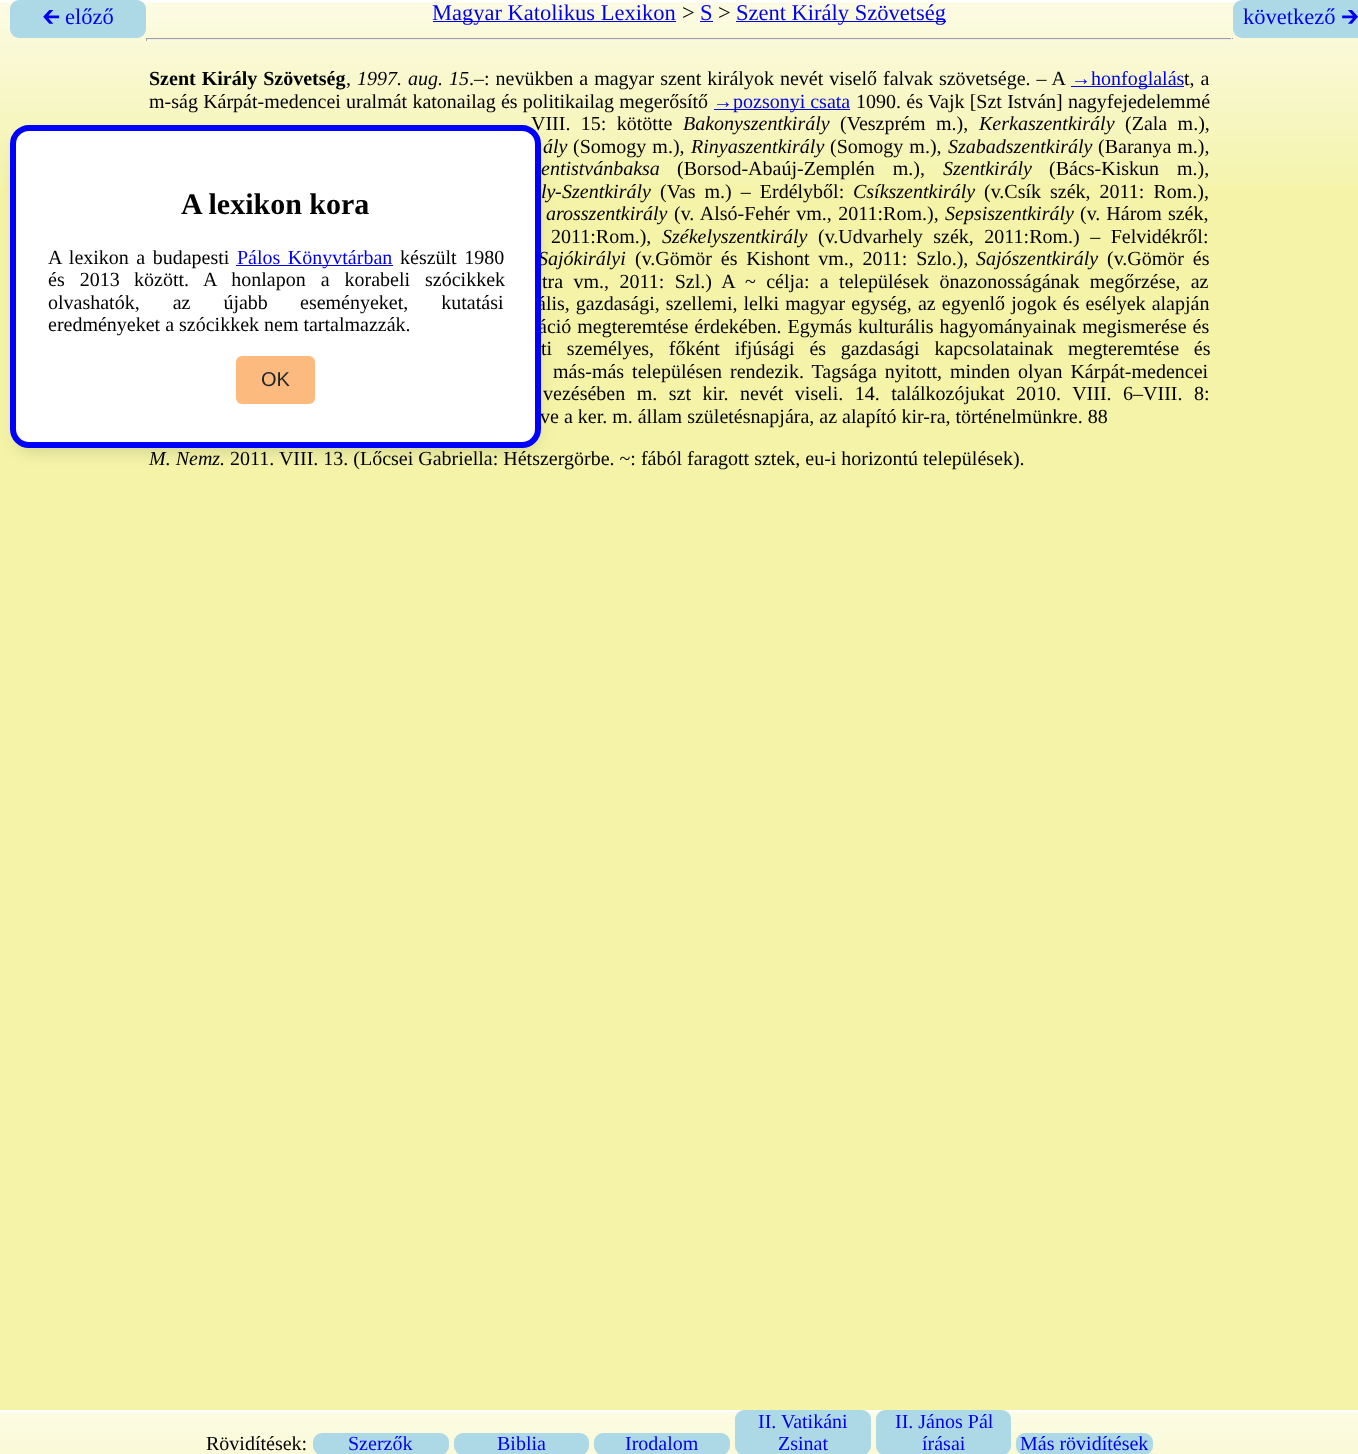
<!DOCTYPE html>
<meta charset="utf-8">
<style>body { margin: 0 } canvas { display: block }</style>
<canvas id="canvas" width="1358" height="1454"></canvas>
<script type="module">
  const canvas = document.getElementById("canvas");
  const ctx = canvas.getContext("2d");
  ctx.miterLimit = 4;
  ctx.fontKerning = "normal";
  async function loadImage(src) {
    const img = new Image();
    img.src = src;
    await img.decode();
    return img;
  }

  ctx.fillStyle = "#f4f3a8";
  ctx.fillRect(0, 0, 1358, 1454);
  ctx.drawImage(await loadImage("img1.png"), 0, 0, 1358, 186);
  ctx.fillStyle = "#add8e6";
  ctx.beginPath();
  ctx.roundRect(10, 0, 136, 38, 9);
  ctx.fill();
  ctx.font = "22.5px 'Noto Sans Symbols 2'";
  ctx.fillStyle = "#0000ee";
  ctx.fillText("🡰", 42, 24);
  ctx.font = "22.5px Liberation Serif";
  ctx.fillText("előző", 65, 24);
  ctx.fillRect(433, 21, 243, 1);
  ctx.fillText("Magyar Katolikus Lexikon", 432, 20);
  ctx.fillStyle = "#000000";
  ctx.fillText(">", 682, 20);
  ctx.fillStyle = "#0000ee";
  ctx.fillText("S", 700, 20);
  ctx.fillRect(700, 21, 13, 1);
  ctx.fillStyle = "#000000";
  ctx.fillText(">", 718, 20);
  ctx.fillStyle = "#0000ee";
  ctx.fillRect(736, 21, 210, 1);
  ctx.fillText("Szent Király Szövetség", 736, 20);
  ctx.fillStyle = "#9f9f9f";
  ctx.fillRect(146, 38, 1087, 1);
  ctx.fillStyle = "#eeeeee";
  ctx.fillRect(1231, 38, 1, 3);
  ctx.fillRect(146, 39, 1087, 1);
  ctx.fillStyle = "#9f9f9f";
  ctx.fillRect(146, 38, 1, 3);
  ctx.fillStyle = "#add8e6";
  ctx.beginPath();
  ctx.roundRect(1233, 0, 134, 38, 9);
  ctx.fill();
  ctx.fillStyle = "#0000ee";
  ctx.fillText("következő", 1243, 24);
  ctx.font = "22.5px 'Noto Sans Symbols 2'";
  ctx.fillText("🡲", 1341, 24);
  ctx.wordSpacing = "1px";
  ctx.font = "bold 20px Liberation Serif";
  ctx.fillStyle = "#000000";
  ctx.fillText("Szent Király Szövetség", 149, 85);
  ctx.wordSpacing = "0px";
  ctx.font = "20px Liberation Serif";
  ctx.fillText(",", 346, 85);
  ctx.wordSpacing = "1px";
  ctx.font = "italic 20px Liberation Serif";
  ctx.fillText("1997. aug. 15", 357, 85);
  ctx.font = "20px Liberation Serif";
  ctx.fillText(".–: nevükben a magyar szent királyok nevét viselő falvak szövetsége. – A", 469, 85);
  ctx.fillStyle = "#0000ee";
  ctx.fillRect(1071, 86, 113, 1);
  ctx.wordSpacing = "0px";
  ctx.fillText("→honfoglalás", 1071, 85);
  ctx.wordSpacing = "1px";
  ctx.fillStyle = "#000000";
  ctx.fillText("t, a", 1184, 85);
  ctx.wordSpacing = "0.25px";
  ctx.fillText("m-ság Kárpát-medencei uralmát katonailag és politikailag megerősítő", 149, 108);
  ctx.fillStyle = "#0000ee";
  ctx.fillRect(714, 109, 136, 1);
  ctx.wordSpacing = "0px";
  ctx.fillText("→pozsonyi csata", 713, 108);
  ctx.wordSpacing = "0.25px";
  ctx.fillStyle = "#000000";
  ctx.fillText("1090. és Vajk [Szt István] nagyfejedelemmé", 856, 108);
  ctx.wordSpacing = "5.4px";
  ctx.fillText("VIII. 15: kötötte", 531, 130);
  ctx.wordSpacing = "0px";
  ctx.font = "italic 20px Liberation Serif";
  ctx.fillText("Bakonyszentkirály", 683, 130);
  ctx.wordSpacing = "5.4px";
  ctx.font = "20px Liberation Serif";
  ctx.fillText("(Veszprém m.),", 840, 130);
  ctx.wordSpacing = "0px";
  ctx.font = "italic 20px Liberation Serif";
  ctx.fillText("Kerkaszentkirály", 979, 130);
  ctx.wordSpacing = "5.4px";
  ctx.font = "20px Liberation Serif";
  ctx.fillText("(Zala m.),", 1125, 130);
  ctx.wordSpacing = "0px";
  ctx.font = "italic 20px Liberation Serif";
  ctx.fillText("ály", 543, 153);
  ctx.wordSpacing = "1px";
  ctx.font = "20px Liberation Serif";
  ctx.fillText("(Somogy m.),", 573, 153);
  ctx.wordSpacing = "0px";
  ctx.font = "italic 20px Liberation Serif";
  ctx.fillText("Rinyaszentkirály", 691, 153);
  ctx.wordSpacing = "1px";
  ctx.font = "20px Liberation Serif";
  ctx.fillText("(Somogy m.),", 830, 153);
  ctx.wordSpacing = "0px";
  ctx.font = "italic 20px Liberation Serif";
  ctx.fillText("Szabadszentkirály", 948, 153);
  ctx.wordSpacing = "1px";
  ctx.font = "20px Liberation Serif";
  ctx.fillText("(Baranya m.),", 1098, 153);
  ctx.wordSpacing = "0px";
  ctx.font = "italic 20px Liberation Serif";
  ctx.fillText("entistvánbaksa", 541, 175);
  ctx.wordSpacing = "13px";
  ctx.font = "20px Liberation Serif";
  ctx.fillText("(Borsod-Abaúj-Zemplén m.),", 677, 175);
  ctx.wordSpacing = "0px";
  ctx.font = "italic 20px Liberation Serif";
  ctx.fillText("Szentkirály", 943, 175);
  ctx.wordSpacing = "13px";
  ctx.font = "20px Liberation Serif";
  ctx.fillText("(Bács-Kiskun m.),", 1049, 175);
  ctx.wordSpacing = "0px";
  ctx.font = "italic 20px Liberation Serif";
  ctx.fillText("ly", 541, 198);
  ctx.font = "20px Liberation Serif";
  ctx.fillText("-", 555, 198);
  ctx.font = "italic 20px Liberation Serif";
  ctx.fillText("Szentkirály", 562, 198);
  ctx.wordSpacing = "4px";
  ctx.font = "20px Liberation Serif";
  ctx.fillText("(Vas m.) – Erdélyből:", 660, 198);
  ctx.wordSpacing = "0px";
  ctx.font = "italic 20px Liberation Serif";
  ctx.fillText("Csíkszentkirály", 853, 198);
  ctx.wordSpacing = "4px";
  ctx.font = "20px Liberation Serif";
  ctx.fillText("(v.Csík szék, 2011: Rom.),", 984, 198);
  ctx.wordSpacing = "0px";
  ctx.font = "italic 20px Liberation Serif";
  ctx.fillText("arosszentkirály", 546, 220);
  ctx.wordSpacing = "1.5px";
  ctx.font = "20px Liberation Serif";
  ctx.fillText("(v. Alsó-Fehér vm., 2011:Rom.),", 674, 220);
  ctx.wordSpacing = "0px";
  ctx.font = "italic 20px Liberation Serif";
  ctx.fillText("Sepsiszentkirály", 945, 220);
  ctx.wordSpacing = "1px";
  ctx.font = "20px Liberation Serif";
  ctx.fillText("(v. Három szék,", 1080, 220);
  ctx.wordSpacing = "5.5px";
  ctx.fillText("2011:Rom.),", 551, 243);
  ctx.wordSpacing = "0px";
  ctx.font = "italic 20px Liberation Serif";
  ctx.fillText("Székelyszentkirály", 662, 243);
  ctx.wordSpacing = "5.5px";
  ctx.font = "20px Liberation Serif";
  ctx.fillText("(v.Udvarhely szék, 2011:Rom.) – Felvidékről:", 818, 243);
  ctx.wordSpacing = "0px";
  ctx.font = "italic 20px Liberation Serif";
  ctx.fillText("Sajókirályi", 538, 265);
  ctx.wordSpacing = "3.75px";
  ctx.font = "20px Liberation Serif";
  ctx.fillText("(v.Gömör és Kishont vm., 2011: Szlo.),", 635, 265);
  ctx.wordSpacing = "0px";
  ctx.font = "italic 20px Liberation Serif";
  ctx.fillText("Sajószentkirály", 976, 265);
  ctx.wordSpacing = "3.75px";
  ctx.font = "20px Liberation Serif";
  ctx.fillText("(v.Gömör és", 1107, 265);
  ctx.wordSpacing = "5.4px";
  ctx.fillText("tra vm., 2011: Szl.) A ~ célja: a települések önazonosságának megőrzése, az", 542, 288);
  ctx.wordSpacing = "1.1px";
  ctx.fillText("ális, gazdasági, szellemi, lelki magyar egység, az egyenlő jogok és esélyek alapján", 537, 310);
  ctx.wordSpacing = "1px";
  ctx.fillText("áció megteremtése érdekében. Egymás kulturális hagyományainak megismerése és", 538, 333);
  ctx.wordSpacing = "9.75px";
  ctx.fillText("ti személyes, főként ifjúsági és gazdasági kapcsolatainak megteremtése és", 541, 355);
  ctx.wordSpacing = "3px";
  ctx.fillText("más-más településen rendezik. Tagsága nyitott, minden olyan Kárpát-medencei", 553, 378);
  ctx.wordSpacing = "6.5px";
  ctx.fillText("vezésében m. szt kir. nevét viseli. 14. találkozójukat 2010. VIII. 6–VIII. 8:", 543, 400);
  ctx.wordSpacing = "0px";
  ctx.fillText("ve a ker. m. állam születésnapjára, az alapító kir-ra, történelmünkre. 88", 540, 423);
  ctx.font = "italic 20px Liberation Serif";
  ctx.fillText("M. Nemz.", 149, 465);
  ctx.font = "20px Liberation Serif";
  ctx.fillText("2011. VIII. 13. (Lőcsei Gabriella: Hétszergörbe. ~: fából faragott sztek, eu-i horizontú települések).", 230, 465);
  ctx.fillStyle = "rgba(0, 0, 0, 0.15)";
  ctx.filter = "blur(9px)";
  ctx.beginPath();
  ctx.roundRect(18, 140, 518, 310, 13);
  ctx.fill();
  ctx.filter = "none";
  ctx.fillStyle = "#ffffff";
  ctx.beginPath();
  ctx.roundRect(13, 128, 525, 317, 16);
  ctx.fill();
  ctx.strokeStyle = "#0000ff";
  ctx.lineWidth = 6;
  ctx.stroke();
  ctx.font = "bold 30px Liberation Serif";
  ctx.fillStyle = "#000000";
  ctx.fillText("A lexikon kora", 181, 214);
  ctx.wordSpacing = "2.5px";
  ctx.font = "20px Liberation Serif";
  ctx.fillText("A lexikon a budapesti", 48, 264);
  ctx.fillStyle = "#0000ee";
  ctx.fillRect(236, 265, 157, 1);
  ctx.fillText("Pálos Könyvtárban", 237, 264);
  ctx.fillStyle = "#000000";
  ctx.fillText("készült 1980", 400, 264);
  ctx.wordSpacing = "10px";
  ctx.fillText("és 2013", 48, 286);
  ctx.fillText("között. A honlapon a korabeli szócikkek", 134, 286);
  ctx.wordSpacing = "28px";
  ctx.fillText("olvashatók, az újabb", 48, 309);
  ctx.fillText("eseményeket, kutatási", 300, 309);
  ctx.wordSpacing = "0px";
  ctx.fillText("eredményeket a szócikkek nem tartalmazzák.", 48, 331);
  ctx.fillStyle = "#fcba7f";
  ctx.beginPath();
  ctx.roundRect(236, 356, 79, 48, 6);
  ctx.fill();
  ctx.font = "20px Liberation Sans";
  ctx.fillStyle = "#212529";
  ctx.fillText("OK", 261, 386);
  ctx.drawImage(await loadImage("img2.png"), 0, 1410, 1358, 44);
  ctx.font = "20px Liberation Serif";
  ctx.fillStyle = "#000000";
  ctx.fillText("Rövidítések:", 206, 1450);
  ctx.fillStyle = "#add8e6";
  ctx.beginPath();
  ctx.roundRect(313, 1433, 136, 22, 9);
  ctx.fill();
  ctx.fillStyle = "#0000ee";
  ctx.fillText("Szerzők", 348, 1450);
  ctx.fillStyle = "#add8e6";
  ctx.beginPath();
  ctx.roundRect(454, 1433, 135, 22, 9);
  ctx.fill();
  ctx.fillStyle = "#0000ee";
  ctx.fillText("Biblia", 497, 1450);
  ctx.fillStyle = "#add8e6";
  ctx.beginPath();
  ctx.roundRect(594, 1433, 136, 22, 9);
  ctx.fill();
  ctx.fillStyle = "#0000ee";
  ctx.fillText("Irodalom", 625, 1450);
  ctx.fillStyle = "#add8e6";
  ctx.beginPath();
  ctx.roundRect(735, 1410, 136, 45, 9);
  ctx.fill();
  ctx.fillStyle = "#0000ee";
  ctx.fillText("II. Vatikáni", 758, 1428);
  ctx.fillText("Zsinat", 778, 1450);
  ctx.fillStyle = "#add8e6";
  ctx.beginPath();
  ctx.roundRect(876, 1410, 135, 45, 9);
  ctx.fill();
  ctx.fillStyle = "#0000ee";
  ctx.fillText("II. János Pál", 895, 1428);
  ctx.fillText("írásai", 922, 1450);
  ctx.fillStyle = "#add8e6";
  ctx.beginPath();
  ctx.roundRect(1016, 1433, 137, 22, 9);
  ctx.fill();
  ctx.fillStyle = "#0000ee";
  ctx.fillText("Más rövidítések", 1020, 1450);
</script>
